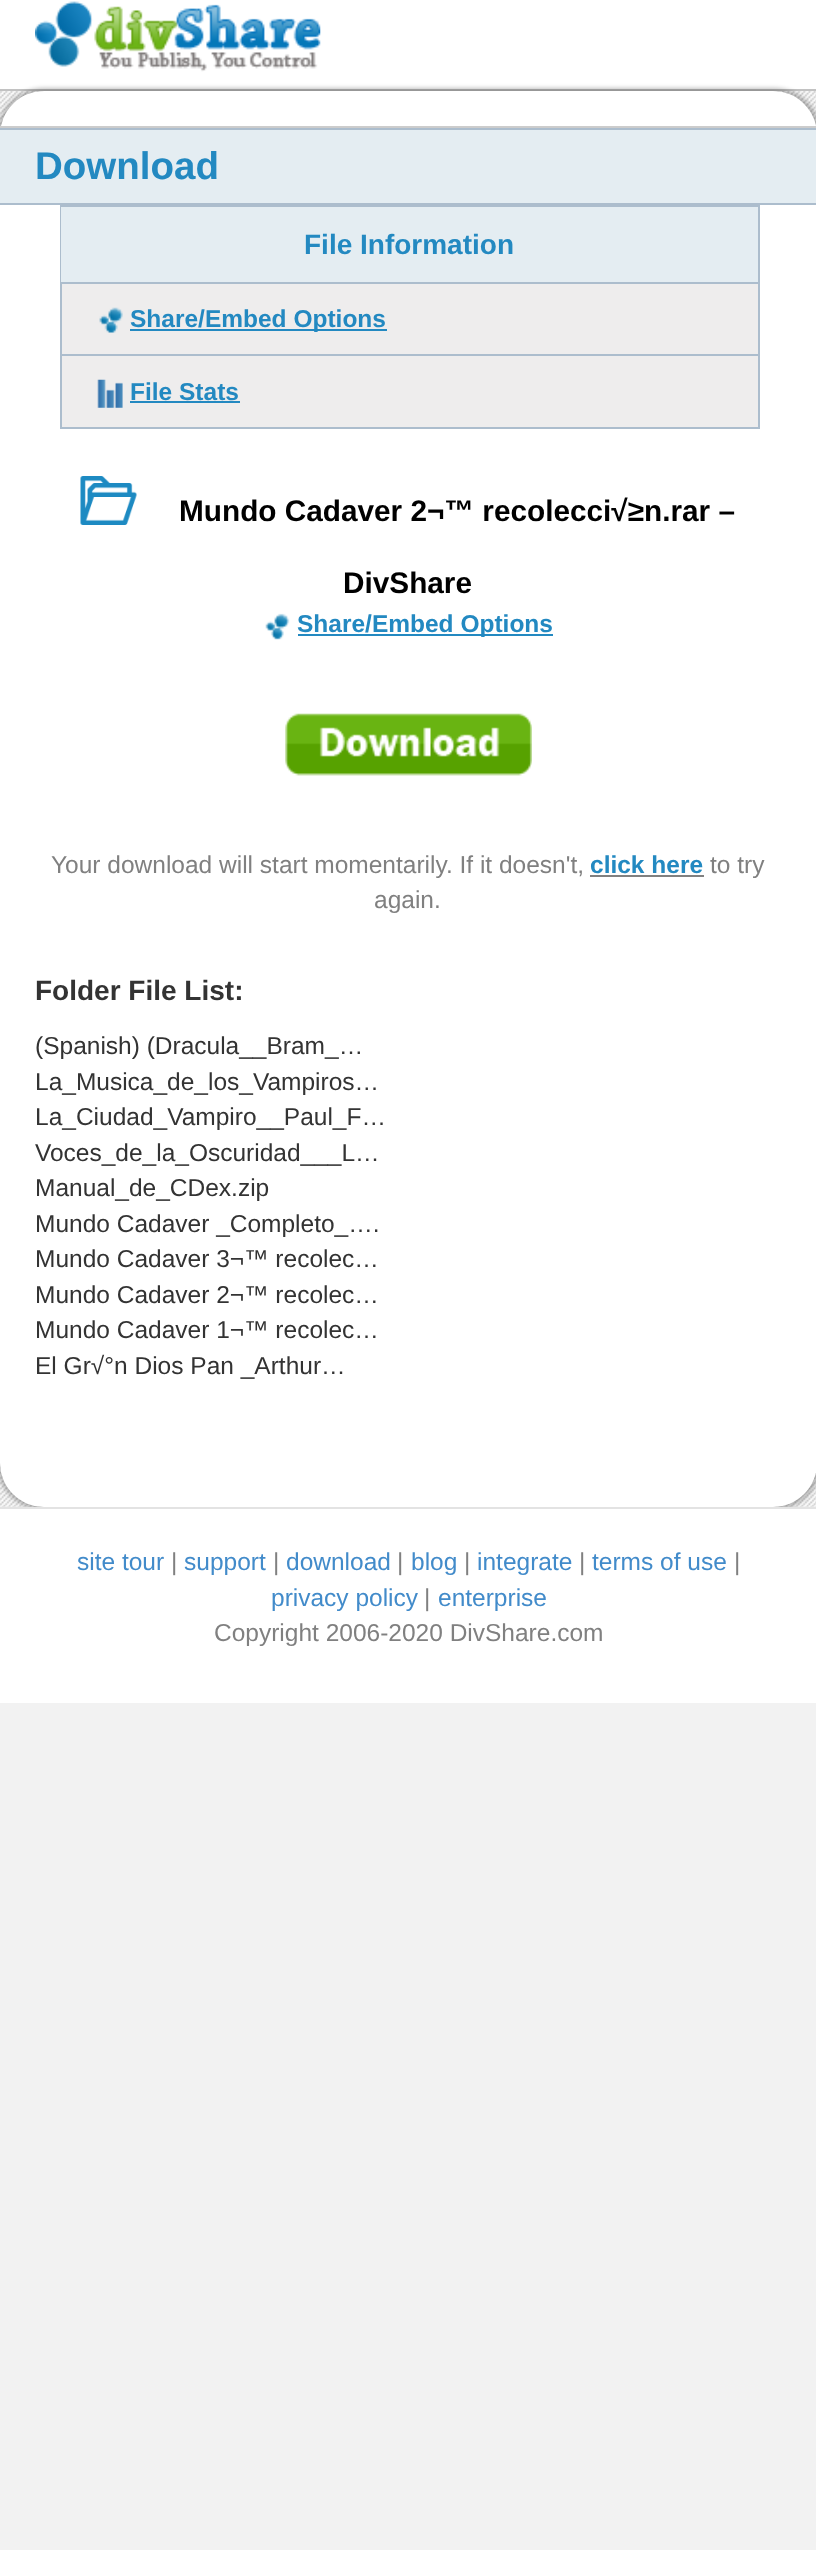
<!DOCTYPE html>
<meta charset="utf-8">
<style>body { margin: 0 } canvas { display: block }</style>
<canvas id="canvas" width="816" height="2550"></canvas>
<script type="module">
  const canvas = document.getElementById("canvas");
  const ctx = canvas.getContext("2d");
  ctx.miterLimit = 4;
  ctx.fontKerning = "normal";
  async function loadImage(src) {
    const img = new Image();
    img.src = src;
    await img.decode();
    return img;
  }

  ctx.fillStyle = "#f2f2f2";
  ctx.fillRect(0, 0, 816, 2550);
  ctx.fillStyle = "#ffffff";
  ctx.fillRect(0, 0, 816, 89);
  ctx.fillStyle = "#c2c2c2";
  ctx.fillRect(0, 89, 816, 2);
  ctx.drawImage(await loadImage("img1.png"), 35, 1, 286, 71);
  ctx.drawImage(await loadImage("img2.png"), 0, 91, 816, 1416);
  ctx.drawImage(await loadImage("img8.png"), 0, 1506, 816, 1);
  ctx.fillStyle = "rgba(0, 0, 0, 0.25)";
  ctx.filter = "blur(2px)";
  ctx.beginPath();
  ctx.roundRect(-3, 88, 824, 1422, 47);
  ctx.fill();
  ctx.filter = "none";
  ctx.fillStyle = "#ffffff";
  ctx.beginPath();
  ctx.roundRect(0, 91, 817, 1416, 44);
  ctx.fill();
  ctx.fillStyle = "#cccccc";
  ctx.fillRect(0, 126, 816, 2);
  ctx.fillStyle = "#e4edf2";
  ctx.fillRect(0, 130, 816, 73);
  ctx.fillStyle = "#acbdcd";
  ctx.fillRect(0, 128, 816, 2);
  ctx.fillRect(0, 203, 816, 2);
  ctx.font = "bold 38.5px Liberation Sans";
  ctx.fillStyle = "#2389c1";
  ctx.fillText("Download", 35, 179);
  ctx.fillStyle = "#eeeded";
  ctx.fillRect(62, 284, 696, 143);
  ctx.strokeStyle = "#acbdcd";
  ctx.lineWidth = 2;
  ctx.strokeRect(61, 206, 698, 222);
  ctx.fillStyle = "#e4edf2";
  ctx.fillRect(61, 207, 697, 75);
  ctx.font = "bold 28px Liberation Sans";
  ctx.fillStyle = "#2389c1";
  ctx.fillText("File Information", 304, 254);
  ctx.fillStyle = "#acbdcd";
  ctx.fillRect(61, 282, 697, 2);
  ctx.drawImage(await loadImage("img3.png"), 99, 307, 24, 26);
  ctx.fillStyle = "#2389c1";
  ctx.fillRect(130, 329, 257, 2);
  ctx.font = "bold 24.5px Liberation Sans";
  ctx.fillText("Share/Embed Options", 130, 327);
  ctx.fillStyle = "#acbdcd";
  ctx.fillRect(61, 354, 697, 2);
  ctx.drawImage(await loadImage("img4.png"), 97, 379, 26, 29);
  ctx.fillStyle = "#2389c1";
  ctx.fillText("File Stats", 130, 400);
  ctx.fillRect(130, 401, 110, 2);
  ctx.drawImage(await loadImage("img5.png"), 80, 476, 57, 49);
  ctx.font = "bold 29.75px Liberation Sans";
  ctx.fillStyle = "#000000";
  ctx.fillText("Mundo Cadaver 2¬™ recolecci√≥n.rar –", 179, 521);
  ctx.fillText("DivShare", 343, 593);
  ctx.drawImage(await loadImage("img6.png"), 265, 613, 25, 27);
  ctx.fillStyle = "#2389c1";
  ctx.fillRect(298, 634, 255, 2);
  ctx.font = "bold 24.5px Liberation Sans";
  ctx.fillText("Share/Embed Options", 297, 632);
  ctx.drawImage(await loadImage("img7.png"), 285, 713, 247, 63);
  ctx.font = "24.5px Liberation Sans";
  ctx.fillStyle = "#808080";
  ctx.fillText("Your download will start momentarily. If it doesn't,", 51, 873);
  ctx.font = "bold 24.5px Liberation Sans";
  ctx.fillStyle = "#2389c1";
  ctx.fillText("click here", 590, 873);
  ctx.fillStyle = "#808080";
  ctx.fillRect(590, 875, 114, 2);
  ctx.font = "24.5px Liberation Sans";
  ctx.fillText("to try", 710, 873);
  ctx.fillText("again.", 374, 908);
  ctx.font = "bold 28px Liberation Sans";
  ctx.fillStyle = "#333333";
  ctx.fillText("Folder File List:", 35, 1000);
  ctx.font = "24.5px Liberation Sans";
  ctx.fillText("(Spanish) (Dracula__Bram_…", 35, 1054);
  ctx.fillText("La_Musica_de_los_Vampiros…", 35, 1090);
  ctx.fillText("La_Ciudad_Vampiro__Paul_F…", 35, 1125);
  ctx.fillText("Voces_de_la_Oscuridad___L…", 35, 1161);
  ctx.fillText("Manual_de_CDex.zip", 35, 1196);
  ctx.fillText("Mundo Cadaver _Completo_….", 35, 1232);
  ctx.fillText("Mundo Cadaver 3¬™ recolec…", 35, 1267);
  ctx.fillText("Mundo Cadaver 2¬™ recolec…", 35, 1303);
  ctx.fillText("Mundo Cadaver 1¬™ recolec…", 35, 1338);
  ctx.fillText("El Gr√°n Dios Pan _Arthur…", 35, 1374);
  ctx.fillStyle = "#ffffff";
  ctx.fillRect(0, 1509, 816, 194);
  ctx.fillStyle = "#e3e3e3";
  ctx.fillRect(0, 1507, 816, 2);
  ctx.fillStyle = "#428bca";
  ctx.fillText("site tour", 77, 1570);
  ctx.fillStyle = "#808080";
  ctx.fillText("|", 171, 1570);
  ctx.fillStyle = "#428bca";
  ctx.fillText("support", 184, 1570);
  ctx.fillStyle = "#808080";
  ctx.fillText("|", 273, 1570);
  ctx.fillStyle = "#428bca";
  ctx.fillText("download", 286, 1570);
  ctx.fillStyle = "#808080";
  ctx.fillText("|", 397, 1570);
  ctx.fillStyle = "#428bca";
  ctx.fillText("blog", 411, 1570);
  ctx.fillStyle = "#808080";
  ctx.fillText("|", 464, 1570);
  ctx.fillStyle = "#428bca";
  ctx.fillText("integrate", 477, 1570);
  ctx.fillStyle = "#808080";
  ctx.fillText("|", 579, 1570);
  ctx.fillStyle = "#428bca";
  ctx.fillText("terms of use", 592, 1570);
  ctx.fillStyle = "#808080";
  ctx.fillText("|", 734, 1570);
  ctx.fillStyle = "#428bca";
  ctx.fillText("privacy policy", 271, 1606);
  ctx.fillStyle = "#808080";
  ctx.fillText("|", 424, 1606);
  ctx.fillStyle = "#428bca";
  ctx.fillText("enterprise", 438, 1606);
  ctx.fillStyle = "#808080";
  ctx.fillText("Copyright 2006-2020 DivShare.com", 214, 1641);
</script>
